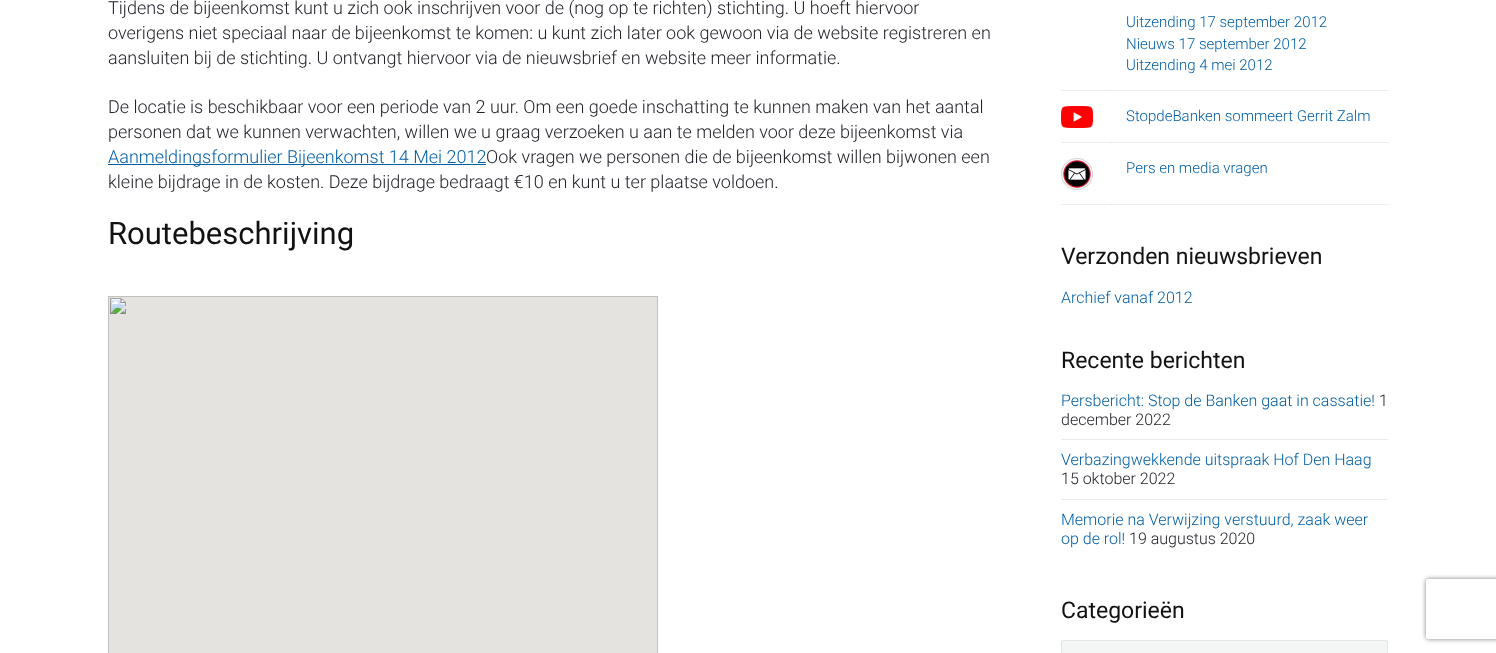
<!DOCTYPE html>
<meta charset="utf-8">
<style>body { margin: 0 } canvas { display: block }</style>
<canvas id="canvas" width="1496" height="653"></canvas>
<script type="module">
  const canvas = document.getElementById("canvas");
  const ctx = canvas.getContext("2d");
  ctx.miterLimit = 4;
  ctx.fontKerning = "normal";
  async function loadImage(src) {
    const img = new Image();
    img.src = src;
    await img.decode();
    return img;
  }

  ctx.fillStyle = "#ffffff";
  ctx.fillRect(0, 0, 1496, 653);
  ctx.fillStyle = "#f0ecec";
  ctx.fillRect(1061, 90, 328, 1);
  ctx.fillRect(1061, 142, 328, 1);
  ctx.fillRect(1061, 204, 328, 1);
  ctx.font = "300 18px Roboto";
  ctx.fillStyle = "#22222a";
  ctx.fillText("Tijdens de bijeenkomst kunt u zich ook inschrijven voor de (nog op te richten) stichting. U hoeft hiervoor", 108, 14);
  ctx.fillText("overigens niet speciaal naar de bijeenkomst te komen: u kunt zich later ook gewoon via de website registreren en", 108, 39);
  ctx.fillText("aansluiten bij de stichting. U ontvangt hiervoor via de nieuwsbrief en website meer informatie.", 108, 64);
  ctx.fillText("De locatie is beschikbaar voor een periode van 2 uur. Om een goede inschatting te kunnen maken van het aantal", 108, 113);
  ctx.fillText("personen dat we kunnen verwachten, willen we u graag verzoeken u aan te melden voor deze bijeenkomst via", 108, 138);
  ctx.fillStyle = "#005ea5";
  ctx.fillRect(108, 164, 378, 1);
  ctx.fillText("Aanmeldingsformulier Bijeenkomst 14 Mei 2012", 108, 163);
  ctx.fillStyle = "#22222a";
  ctx.fillText("Ook vragen we personen die de bijeenkomst willen bijwonen een", 486, 163);
  ctx.fillText("kleine bijdrage in de kosten. Deze bijdrage bedraagt €10 en kunt u ter plaatse voldoen.", 108, 188);
  ctx.font = "31px Roboto";
  ctx.fillStyle = "#121212";
  ctx.fillText("Routebeschrijving", 108, 244);
  ctx.drawImage(await loadImage("img1.png"), 108, 296, 550, 357);
  ctx.fillStyle = "#e2dbdb";
  ctx.fillRect(1111, 90, 1, 1);
  ctx.font = "300 15px Roboto";
  ctx.fillStyle = "#005ea5";
  ctx.fillText("Uitzending 17 september 2012", 1126, 27);
  ctx.fillText("Nieuws 17 september 2012", 1126, 49);
  ctx.fillText("Uitzending 4 mei 2012", 1126, 70);
  ctx.drawImage(await loadImage("img2.png"), 1061, 106, 32, 22);
  ctx.fillStyle = "#e2dbdb";
  ctx.fillRect(1111, 142, 1, 1);
  ctx.fillStyle = "#005ea5";
  ctx.fillText("StopdeBanken sommeert Gerrit Zalm", 1126, 121);
  ctx.drawImage(await loadImage("img3.png"), 1061, 158, 32, 32);
  ctx.fillStyle = "#e2dbdb";
  ctx.fillRect(1111, 204, 1, 1);
  ctx.fillStyle = "#005ea5";
  ctx.fillText("Pers en media vragen", 1126, 173);
  ctx.font = "23px Roboto";
  ctx.fillStyle = "#121212";
  ctx.fillText("Verzonden nieuwsbrieven", 1061, 264);
  ctx.font = "300 16px Roboto";
  ctx.fillStyle = "#005ea5";
  ctx.fillText("Archief vanaf 2012", 1061, 303);
  ctx.font = "23px Roboto";
  ctx.fillStyle = "#121212";
  ctx.fillText("Recente berichten", 1061, 368);
  ctx.fillStyle = "#e9ebec";
  ctx.fillRect(1061, 439, 327, 1);
  ctx.font = "300 16px Roboto";
  ctx.fillStyle = "#005ea5";
  ctx.fillText("Persbericht: Stop de Banken gaat in cassatie!", 1061, 406);
  ctx.fillStyle = "#22222a";
  ctx.fillText("1", 1379, 406);
  ctx.fillText("december 2022", 1061, 425);
  ctx.fillStyle = "#e9ebec";
  ctx.fillRect(1061, 499, 327, 1);
  ctx.fillStyle = "#005ea5";
  ctx.fillText("Verbazingwekkende uitspraak Hof Den Haag", 1061, 465);
  ctx.fillStyle = "#22222a";
  ctx.fillText("15 oktober 2022", 1061, 484);
  ctx.fillStyle = "#005ea5";
  ctx.fillText("Memorie na Verwijzing verstuurd, zaak weer", 1061, 525);
  ctx.fillText("op de rol!", 1061, 544);
  ctx.fillStyle = "#22222a";
  ctx.fillText("19 augustus 2020", 1129, 544);
  ctx.font = "23px Roboto";
  ctx.fillStyle = "#121212";
  ctx.fillText("Categorieën", 1061, 618);
  ctx.fillStyle = "#f4f5f5";
  ctx.beginPath();
  ctx.roundRect(1061.5, 640.5, 326, 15, 1.5);
  ctx.fill();
  ctx.strokeStyle = "#e4e6e7";
  ctx.stroke();
  ctx.save();
  ctx.beginPath();
  ctx.moveTo(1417, 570);
  ctx.lineTo(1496, 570);
  ctx.lineTo(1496, 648);
  ctx.lineTo(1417, 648);
  ctx.closePath();
  ctx.moveTo(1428, 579);
  ctx.lineTo(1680, 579);
  ctx.bezierCurveTo(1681, 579, 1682, 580, 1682, 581);
  ctx.lineTo(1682, 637);
  ctx.bezierCurveTo(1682, 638, 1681, 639, 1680, 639);
  ctx.lineTo(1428, 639);
  ctx.bezierCurveTo(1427, 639, 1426, 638, 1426, 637);
  ctx.lineTo(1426, 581);
  ctx.bezierCurveTo(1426, 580, 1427, 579, 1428, 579);
  ctx.closePath();
  ctx.clip("evenodd");
  ctx.fillStyle = "#808080";
  ctx.filter = "blur(2.5px)";
  ctx.beginPath();
  ctx.roundRect(1426, 579, 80, 60, 2);
  ctx.fill();
  ctx.filter = "none";
  ctx.restore();
</script>
